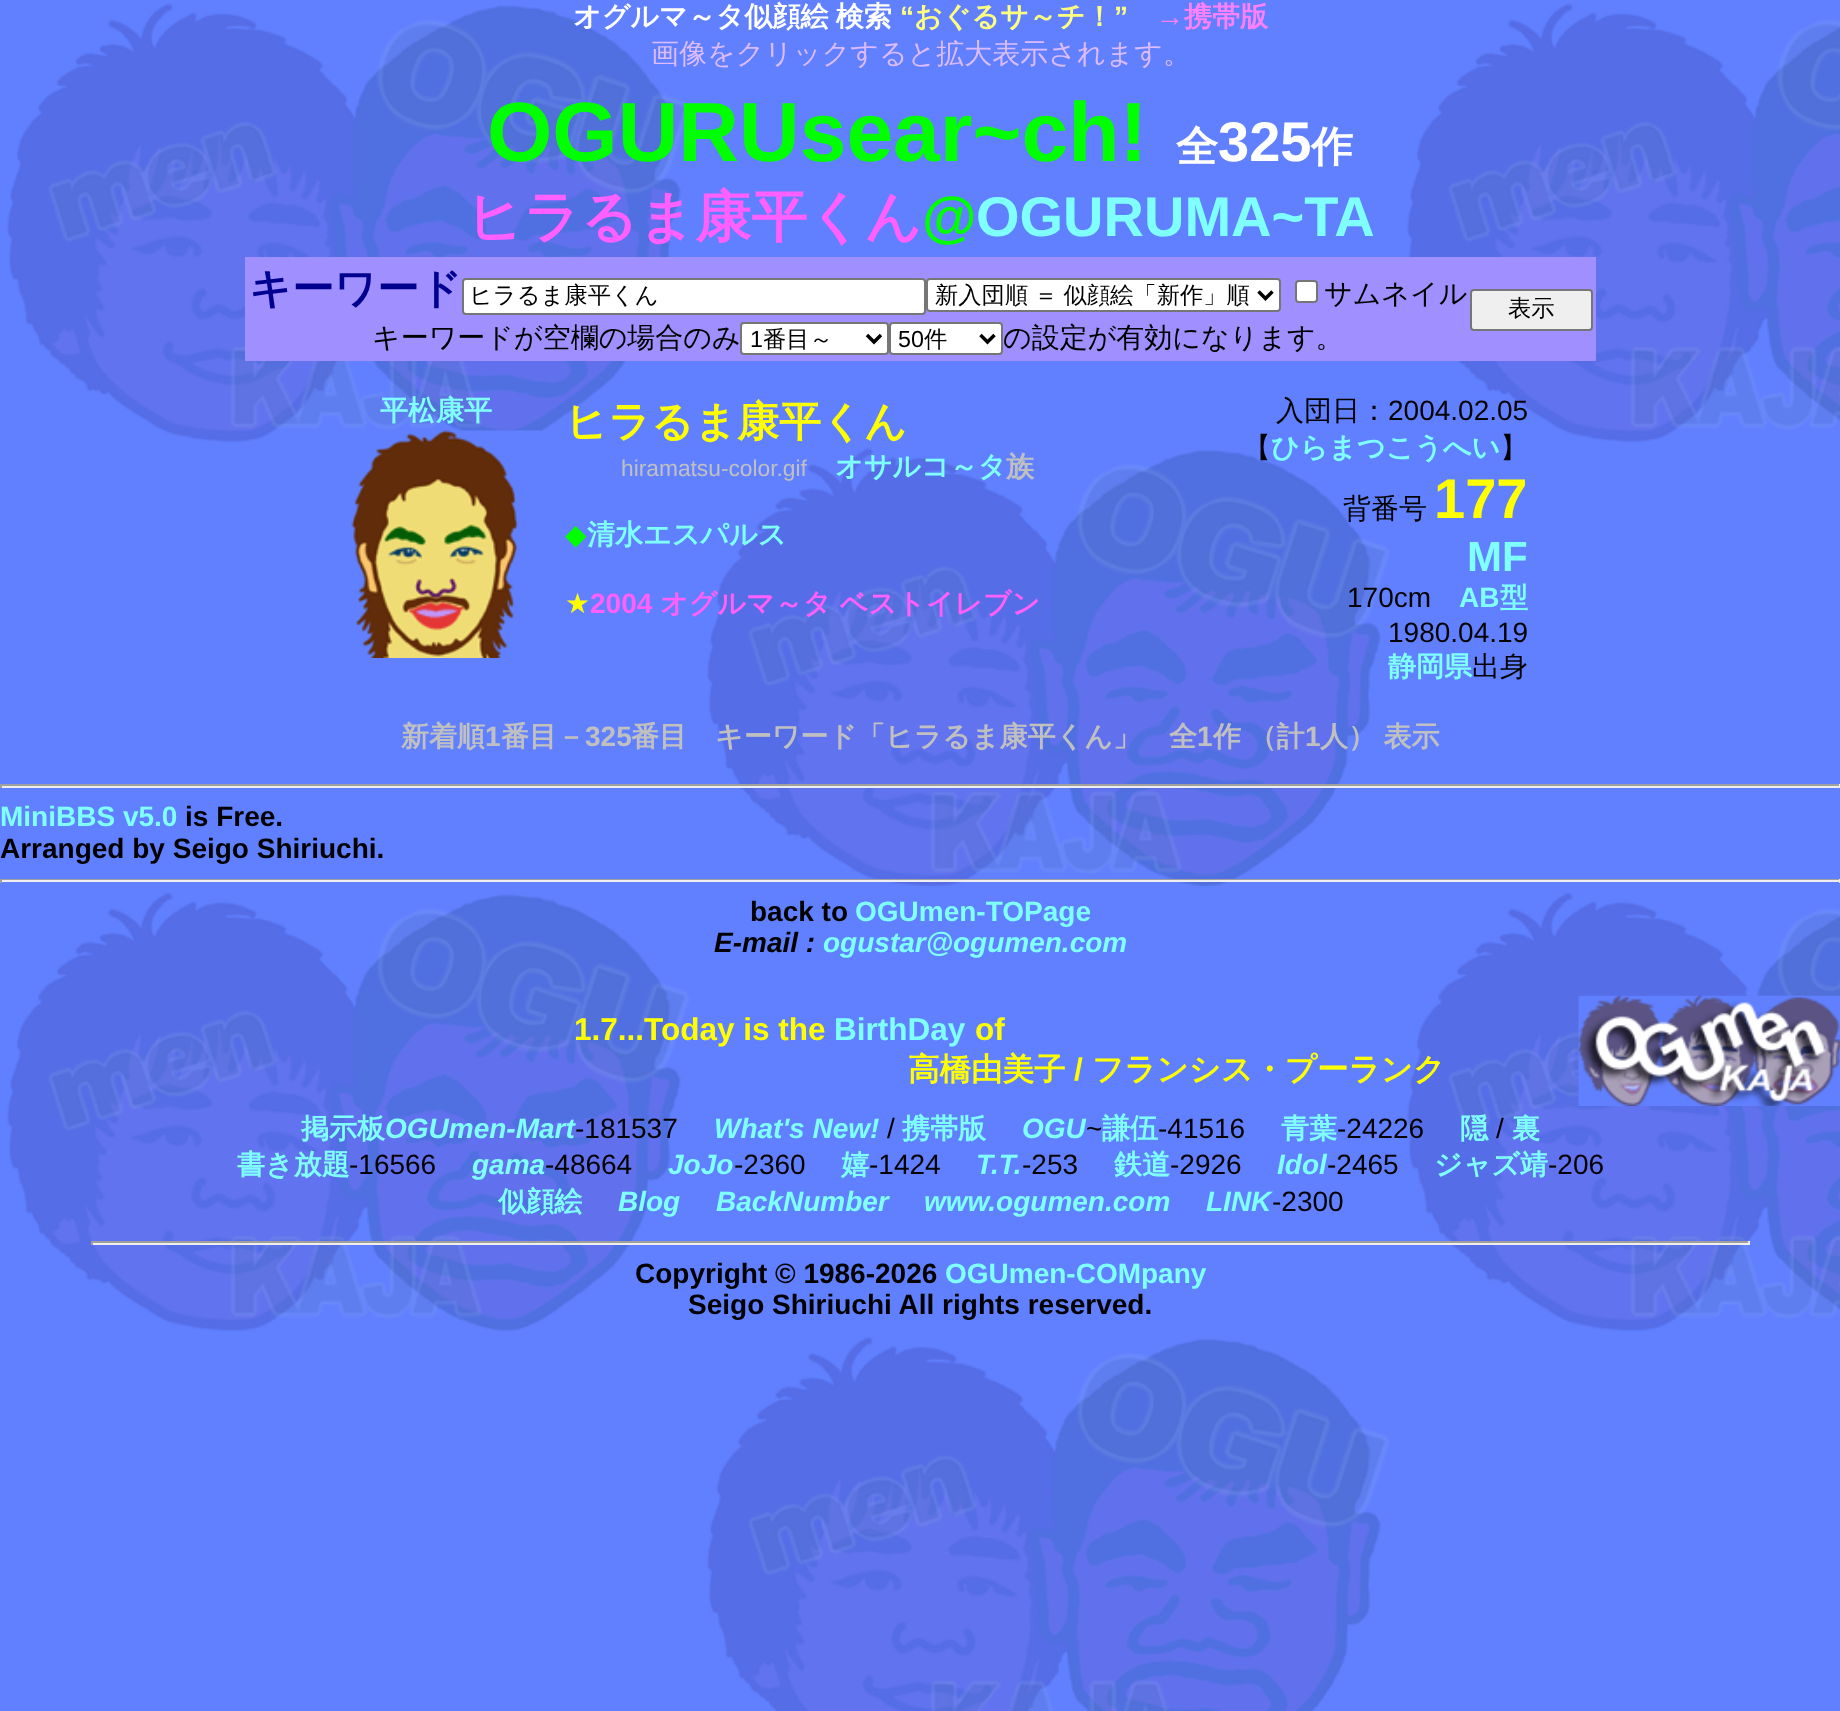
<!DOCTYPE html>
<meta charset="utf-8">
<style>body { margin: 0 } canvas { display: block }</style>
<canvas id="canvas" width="1840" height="1711"></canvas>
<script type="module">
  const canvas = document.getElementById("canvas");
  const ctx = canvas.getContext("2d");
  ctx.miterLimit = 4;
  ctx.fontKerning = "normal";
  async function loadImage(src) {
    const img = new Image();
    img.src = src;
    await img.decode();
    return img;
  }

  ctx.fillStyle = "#6080ff";
  ctx.fillRect(0, 0, 1840, 1711);
  ctx.drawImage(await loadImage("img1.png"), 7, 3, 1833, 1708);
  ctx.wordSpacing = "-1px";
  ctx.font = "bold 28px WenQuanYi Zen Hei";
  ctx.fillStyle = "#ffffff";
  ctx.fillText("オグルマ～タ似顔絵 検索", 573, 26);
  ctx.wordSpacing = "0px";
  ctx.font = "bold 28px Liberation Sans";
  ctx.fillStyle = "#ffff80";
  ctx.fillText("“", 900, 26);
  ctx.font = "bold 28px WenQuanYi Zen Hei";
  ctx.fillText("おぐるサ～チ！", 914, 26);
  ctx.font = "bold 28px Liberation Sans";
  ctx.fillText("”", 1114, 26);
  ctx.font = "bold 28px WenQuanYi Zen Hei";
  ctx.fillStyle = "#ff80ff";
  ctx.fillText("携帯版", 1184, 26);
  ctx.font = "bold 28px Liberation Sans";
  ctx.fillText("→", 1156, 26);
  ctx.font = "500 28px WenQuanYi Zen Hei";
  ctx.fillStyle = "#ddbbff";
  ctx.fillText("画像をクリックすると拡大表示されます。", 651, 63);
  ctx.font = "bold 84px Liberation Sans";
  ctx.fillStyle = "#00ff00";
  ctx.fillText("OGURUsear~ch!", 487, 161);
  ctx.font = "bold 42px WenQuanYi Zen Hei";
  ctx.fillStyle = "#ffffff";
  ctx.fillText("全", 1176, 161);
  ctx.font = "bold 56px Liberation Sans";
  ctx.fillText("325", 1218, 161);
  ctx.font = "bold 42px WenQuanYi Zen Hei";
  ctx.fillText("作", 1311, 161);
  ctx.font = "bold 56px WenQuanYi Zen Hei";
  ctx.fillStyle = "#ff60ff";
  ctx.fillText("ヒラるま康平くん", 466, 236);
  ctx.font = "bold 56px Liberation Sans";
  ctx.fillStyle = "#00ff00";
  ctx.fillText("@", 922, 236);
  ctx.fillStyle = "#80ffff";
  ctx.fillText("OGURUMA~TA", 976, 236);
  ctx.fillStyle = "#a090ff";
  ctx.fillRect(245, 257, 1351, 104);
  ctx.font = "bold 42px WenQuanYi Zen Hei";
  ctx.fillStyle = "#000090";
  ctx.fillText("キーワード", 249, 303);
  ctx.fillStyle = "#ffffff";
  ctx.beginPath();
  ctx.roundRect(463, 279, 462, 35, 3);
  ctx.fill();
  ctx.strokeStyle = "#767676";
  ctx.lineWidth = 2;
  ctx.stroke();
  ctx.font = "500 23.3px WenQuanYi Zen Hei";
  ctx.fillStyle = "#000000";
  ctx.fillText("ヒラるま康平くん", 469, 303);
  ctx.fillStyle = "#ffffff";
  ctx.beginPath();
  ctx.roundRect(927, 279, 353, 32, 3);
  ctx.fill();
  ctx.stroke();
  ctx.beginPath();
  ctx.moveTo(1258.5, 291.5);
  ctx.lineTo(1265.5, 298.5);
  ctx.lineTo(1272.5, 291.5);
  ctx.strokeStyle = "#000000";
  ctx.lineWidth = 3.5;
  ctx.stroke();
  ctx.wordSpacing = "-1px";
  ctx.fillStyle = "#000000";
  ctx.fillText("新入団順 ＝ 似顔絵「新作」順", 935, 303);
  ctx.fillStyle = "#ffffff";
  ctx.beginPath();
  ctx.roundRect(1296, 281, 21, 21, 3);
  ctx.fill();
  ctx.strokeStyle = "#767676";
  ctx.lineWidth = 2;
  ctx.stroke();
  ctx.wordSpacing = "0px";
  ctx.font = "500 28px WenQuanYi Zen Hei";
  ctx.fillStyle = "#000000";
  ctx.fillText("サムネイル", 1324, 303);
  ctx.fillStyle = "#efefef";
  ctx.beginPath();
  ctx.roundRect(1471, 290, 121, 40, 3);
  ctx.fill();
  ctx.stroke();
  ctx.font = "500 23.3px WenQuanYi Zen Hei";
  ctx.fillStyle = "#000000";
  ctx.fillText("表示", 1508, 316);
  ctx.font = "500 28px WenQuanYi Zen Hei";
  ctx.fillText("キーワードが空欄の場合のみ", 372, 347);
  ctx.fillStyle = "#ffffff";
  ctx.beginPath();
  ctx.roundRect(741, 323, 147, 31, 3);
  ctx.fill();
  ctx.stroke();
  ctx.beginPath();
  ctx.moveTo(867, 335);
  ctx.lineTo(874, 342);
  ctx.lineTo(881, 335);
  ctx.strokeStyle = "#000000";
  ctx.lineWidth = 3.5;
  ctx.stroke();
  ctx.font = "23.3px Liberation Sans";
  ctx.fillStyle = "#000000";
  ctx.fillText("1", 750, 347);
  ctx.font = "500 23.3px WenQuanYi Zen Hei";
  ctx.fillText("番目～", 763, 347);
  ctx.fillStyle = "#ffffff";
  ctx.beginPath();
  ctx.roundRect(890, 323, 112, 31, 3);
  ctx.fill();
  ctx.strokeStyle = "#767676";
  ctx.lineWidth = 2;
  ctx.stroke();
  ctx.beginPath();
  ctx.moveTo(980.5, 335);
  ctx.lineTo(987.5, 342);
  ctx.lineTo(994.5, 335);
  ctx.strokeStyle = "#000000";
  ctx.lineWidth = 3.5;
  ctx.stroke();
  ctx.font = "23.3px Liberation Sans";
  ctx.fillStyle = "#000000";
  ctx.fillText("50", 898, 347);
  ctx.font = "500 23.3px WenQuanYi Zen Hei";
  ctx.fillText("件", 924, 347);
  ctx.font = "500 28px WenQuanYi Zen Hei";
  ctx.fillText("の設定が有効になります。", 1003, 347);
  ctx.font = "bold 28px WenQuanYi Zen Hei";
  ctx.fillStyle = "#80ffff";
  ctx.fillText("平松康平", 380, 420);
  ctx.drawImage(await loadImage("img2.png"), 351, 430, 190, 228);
  ctx.font = "bold 42px WenQuanYi Zen Hei";
  ctx.fillStyle = "#ffff00";
  ctx.fillText("ヒラるま康平くん", 565, 436);
  ctx.font = "22.75px Liberation Sans";
  ctx.fillStyle = "#c0c0c0";
  ctx.fillText("hiramatsu-color.gif", 621, 476);
  ctx.font = "bold 28px WenQuanYi Zen Hei";
  ctx.fillStyle = "#80ffff";
  ctx.fillText("オサルコ～タ", 835, 476);
  ctx.fillStyle = "#c0c0c0";
  ctx.fillText("族", 1006, 476);
  ctx.font = "28px DejaVu Sans";
  ctx.fillStyle = "#00ff00";
  ctx.fillText("◆", 565, 544);
  ctx.font = "bold 28px WenQuanYi Zen Hei";
  ctx.fillStyle = "#80ffff";
  ctx.fillText("清水エスパルス", 587, 544);
  ctx.font = "28px DejaVu Sans";
  ctx.fillStyle = "#ffff00";
  ctx.fillText("★", 565, 613);
  ctx.font = "bold 28px Liberation Sans";
  ctx.fillStyle = "#ff60ff";
  ctx.fillText("2004", 590, 613);
  ctx.font = "bold 28px WenQuanYi Zen Hei";
  ctx.fillText("オグルマ～タ ベストイレブン", 660, 613);
  ctx.font = "500 28px WenQuanYi Zen Hei";
  ctx.fillStyle = "#000000";
  ctx.fillText("入団日：", 1276, 420);
  ctx.font = "28px Liberation Sans";
  ctx.fillText("2004.02.05", 1388, 420);
  ctx.font = "500 28px WenQuanYi Zen Hei";
  ctx.fillText("【", 1243, 457);
  ctx.font = "bold 28px WenQuanYi Zen Hei";
  ctx.fillStyle = "#80ffff";
  ctx.fillText("ひらまつこうへい", 1271, 457);
  ctx.font = "500 28px WenQuanYi Zen Hei";
  ctx.fillStyle = "#000000";
  ctx.fillText("】", 1500, 457);
  ctx.fillText("背番号", 1343, 518);
  ctx.font = "bold 56px Liberation Sans";
  ctx.fillStyle = "#ffff00";
  ctx.fillText("177", 1434, 518);
  ctx.font = "bold 42px Liberation Sans";
  ctx.fillStyle = "#80ffff";
  ctx.fillText("MF", 1467, 571);
  ctx.font = "28px Liberation Sans";
  ctx.fillStyle = "#000000";
  ctx.fillText("170cm", 1347, 607);
  ctx.font = "bold 28px Liberation Sans";
  ctx.fillStyle = "#80ffff";
  ctx.fillText("AB", 1459, 607);
  ctx.font = "bold 28px WenQuanYi Zen Hei";
  ctx.fillText("型", 1500, 607);
  ctx.font = "28px Liberation Sans";
  ctx.fillStyle = "#000000";
  ctx.fillText("1980.04.19", 1388, 642);
  ctx.font = "bold 28px WenQuanYi Zen Hei";
  ctx.fillStyle = "#80ffff";
  ctx.fillText("静岡県", 1388, 676);
  ctx.font = "500 28px WenQuanYi Zen Hei";
  ctx.fillStyle = "#000000";
  ctx.fillText("出身", 1472, 676);
  ctx.font = "bold 28px WenQuanYi Zen Hei";
  ctx.fillStyle = "#c0c0c0";
  ctx.fillText("新着順", 401, 746);
  ctx.font = "bold 28px Liberation Sans";
  ctx.fillText("1", 485, 746);
  ctx.font = "bold 28px WenQuanYi Zen Hei";
  ctx.fillText("番目－", 501, 746);
  ctx.font = "bold 28px Liberation Sans";
  ctx.fillText("325", 585, 746);
  ctx.font = "bold 28px WenQuanYi Zen Hei";
  ctx.fillText("番目　キーワード「ヒラるま康平くん」　全", 631, 746);
  ctx.font = "bold 28px Liberation Sans";
  ctx.fillText("1", 1197, 746);
  ctx.wordSpacing = "-1px";
  ctx.font = "bold 28px WenQuanYi Zen Hei";
  ctx.fillText("作 （計", 1213, 746);
  ctx.wordSpacing = "0px";
  ctx.font = "bold 28px Liberation Sans";
  ctx.fillText("1", 1305, 746);
  ctx.wordSpacing = "-1px";
  ctx.font = "bold 28px WenQuanYi Zen Hei";
  ctx.fillText("人） 表示", 1320, 746);
  ctx.fillStyle = "#9f9f9f";
  ctx.fillRect(0, 784, 1840, 2);
  ctx.fillStyle = "#eeeeee";
  ctx.fillRect(1839, 784, 1, 4);
  ctx.fillRect(0, 786, 1840, 2);
  ctx.fillStyle = "#9f9f9f";
  ctx.fillRect(0, 784, 2, 4);
  ctx.wordSpacing = "0px";
  ctx.font = "bold 28px Liberation Sans";
  ctx.fillStyle = "#80ffff";
  ctx.fillText("MiniBBS v5.0", 0, 826);
  ctx.fillStyle = "#000000";
  ctx.fillText("is Free.", 185, 826);
  ctx.fillText("Arranged by Seigo Shiriuchi.", 0, 858);
  ctx.fillStyle = "#9f9f9f";
  ctx.fillRect(0, 879, 1840, 1);
  ctx.fillStyle = "#eeeeee";
  ctx.fillRect(1839, 879, 1, 4);
  ctx.fillRect(0, 880, 1840, 2);
  ctx.fillStyle = "#9f9f9f";
  ctx.fillRect(0, 879, 2, 4);
  ctx.fillStyle = "#000000";
  ctx.fillText("back to", 750, 921);
  ctx.fillStyle = "#80ffff";
  ctx.fillText("OGUmen-TOPage", 855, 921);
  ctx.font = "italic bold 28px Liberation Sans";
  ctx.fillStyle = "#000000";
  ctx.fillText("E-mail :", 714, 952);
  ctx.fillStyle = "#80ffff";
  ctx.fillText("ogustar@ogumen.com", 823, 952);
  ctx.font = "bold 31.5px Liberation Sans";
  ctx.fillStyle = "#ffff00";
  ctx.fillText("1.7...Today is the", 574, 1040);
  ctx.fillStyle = "#80ffff";
  ctx.fillText("BirthDay", 834, 1040);
  ctx.fillStyle = "#ffff00";
  ctx.fillText("of", 975, 1040);
  ctx.font = "bold 31.5px WenQuanYi Zen Hei";
  ctx.fillText("高橋由美子", 908, 1080);
  ctx.font = "bold 31.5px Liberation Sans";
  ctx.fillText("/", 1074, 1080);
  ctx.font = "bold 31.5px WenQuanYi Zen Hei";
  ctx.fillText("フランシス・プーランク", 1092, 1080);
  ctx.drawImage(await loadImage("img3.png"), 1578, 995, 262, 111);
  ctx.font = "bold 28px WenQuanYi Zen Hei";
  ctx.fillStyle = "#80ffff";
  ctx.fillText("掲示板", 301, 1138);
  ctx.font = "italic bold 28px Liberation Sans";
  ctx.fillText("OGUmen-Mart", 385, 1138);
  ctx.font = "28px Liberation Sans";
  ctx.fillStyle = "#000000";
  ctx.fillText("-181537", 575, 1138);
  ctx.font = "italic bold 28px Liberation Sans";
  ctx.fillStyle = "#80ffff";
  ctx.fillText("What's New!", 714, 1138);
  ctx.font = "28px Liberation Sans";
  ctx.fillStyle = "#000000";
  ctx.fillText("/", 887, 1138);
  ctx.font = "bold 28px WenQuanYi Zen Hei";
  ctx.fillStyle = "#80ffff";
  ctx.fillText("携帯版", 902, 1138);
  ctx.font = "italic bold 28px Liberation Sans";
  ctx.fillText("OGU", 1022, 1138);
  ctx.font = "28px Liberation Sans";
  ctx.fillStyle = "#000000";
  ctx.fillText("~", 1086, 1138);
  ctx.font = "bold 28px WenQuanYi Zen Hei";
  ctx.fillStyle = "#80ffff";
  ctx.fillText("謙伍", 1102, 1138);
  ctx.font = "28px Liberation Sans";
  ctx.fillStyle = "#000000";
  ctx.fillText("-41516", 1158, 1138);
  ctx.font = "bold 28px WenQuanYi Zen Hei";
  ctx.fillStyle = "#80ffff";
  ctx.fillText("青葉", 1281, 1138);
  ctx.font = "28px Liberation Sans";
  ctx.fillStyle = "#000000";
  ctx.fillText("-24226", 1337, 1138);
  ctx.font = "bold 28px WenQuanYi Zen Hei";
  ctx.fillStyle = "#80ffff";
  ctx.fillText("隠", 1460, 1138);
  ctx.font = "28px Liberation Sans";
  ctx.fillStyle = "#000000";
  ctx.fillText("/", 1496, 1138);
  ctx.font = "bold 28px WenQuanYi Zen Hei";
  ctx.fillStyle = "#80ffff";
  ctx.fillText("裏", 1512, 1138);
  ctx.fillText("書き放題", 237, 1174);
  ctx.font = "28px Liberation Sans";
  ctx.fillStyle = "#000000";
  ctx.fillText("-16566", 349, 1174);
  ctx.font = "italic bold 28px Liberation Sans";
  ctx.fillStyle = "#80ffff";
  ctx.fillText("gama", 472, 1174);
  ctx.font = "28px Liberation Sans";
  ctx.fillStyle = "#000000";
  ctx.fillText("-48664", 545, 1174);
  ctx.font = "italic bold 28px Liberation Sans";
  ctx.fillStyle = "#80ffff";
  ctx.fillText("JoJo", 668, 1174);
  ctx.font = "28px Liberation Sans";
  ctx.fillStyle = "#000000";
  ctx.fillText("-2360", 734, 1174);
  ctx.font = "bold 28px WenQuanYi Zen Hei";
  ctx.fillStyle = "#80ffff";
  ctx.fillText("嬉", 841, 1174);
  ctx.font = "28px Liberation Sans";
  ctx.fillStyle = "#000000";
  ctx.fillText("-1424", 869, 1174);
  ctx.font = "italic bold 28px Liberation Sans";
  ctx.fillStyle = "#80ffff";
  ctx.fillText("T.T.", 976, 1174);
  ctx.font = "28px Liberation Sans";
  ctx.fillStyle = "#000000";
  ctx.fillText("-253", 1022, 1174);
  ctx.font = "bold 28px WenQuanYi Zen Hei";
  ctx.fillStyle = "#80ffff";
  ctx.fillText("鉄道", 1114, 1174);
  ctx.font = "28px Liberation Sans";
  ctx.fillStyle = "#000000";
  ctx.fillText("-2926", 1170, 1174);
  ctx.font = "italic bold 28px Liberation Sans";
  ctx.fillStyle = "#80ffff";
  ctx.fillText("Idol", 1277, 1174);
  ctx.font = "28px Liberation Sans";
  ctx.fillStyle = "#000000";
  ctx.fillText("-2465", 1327, 1174);
  ctx.font = "bold 28px WenQuanYi Zen Hei";
  ctx.fillStyle = "#80ffff";
  ctx.fillText("ジャズ靖", 1434, 1174);
  ctx.font = "28px Liberation Sans";
  ctx.fillStyle = "#000000";
  ctx.fillText("-206", 1548, 1174);
  ctx.font = "bold 28px WenQuanYi Zen Hei";
  ctx.fillStyle = "#80ffff";
  ctx.fillText("似顔絵", 498, 1211);
  ctx.font = "italic bold 28px Liberation Sans";
  ctx.fillText("Blog", 618, 1211);
  ctx.fillText("BackNumber", 716, 1211);
  ctx.fillText("www.ogumen.com", 924, 1211);
  ctx.fillText("LINK", 1206, 1211);
  ctx.font = "28px Liberation Sans";
  ctx.fillStyle = "#000000";
  ctx.fillText("-2300", 1272, 1211);
  ctx.fillStyle = "#9f9f9f";
  ctx.fillRect(91, 1241, 1659, 2);
  ctx.fillStyle = "#eeeeee";
  ctx.fillRect(1748, 1241, 2, 4);
  ctx.fillRect(91, 1243, 1659, 2);
  ctx.fillStyle = "#9f9f9f";
  ctx.fillRect(91, 1241, 2, 4);
  ctx.font = "bold 28px Liberation Sans";
  ctx.fillStyle = "#000000";
  ctx.fillText("Copyright © 1986-2026", 635, 1283);
  ctx.fillStyle = "#80ffff";
  ctx.fillText("OGUmen-COMpany", 945, 1283);
  ctx.fillStyle = "#000000";
  ctx.fillText("Seigo Shiriuchi All rights reserved.", 688, 1314);
</script>
